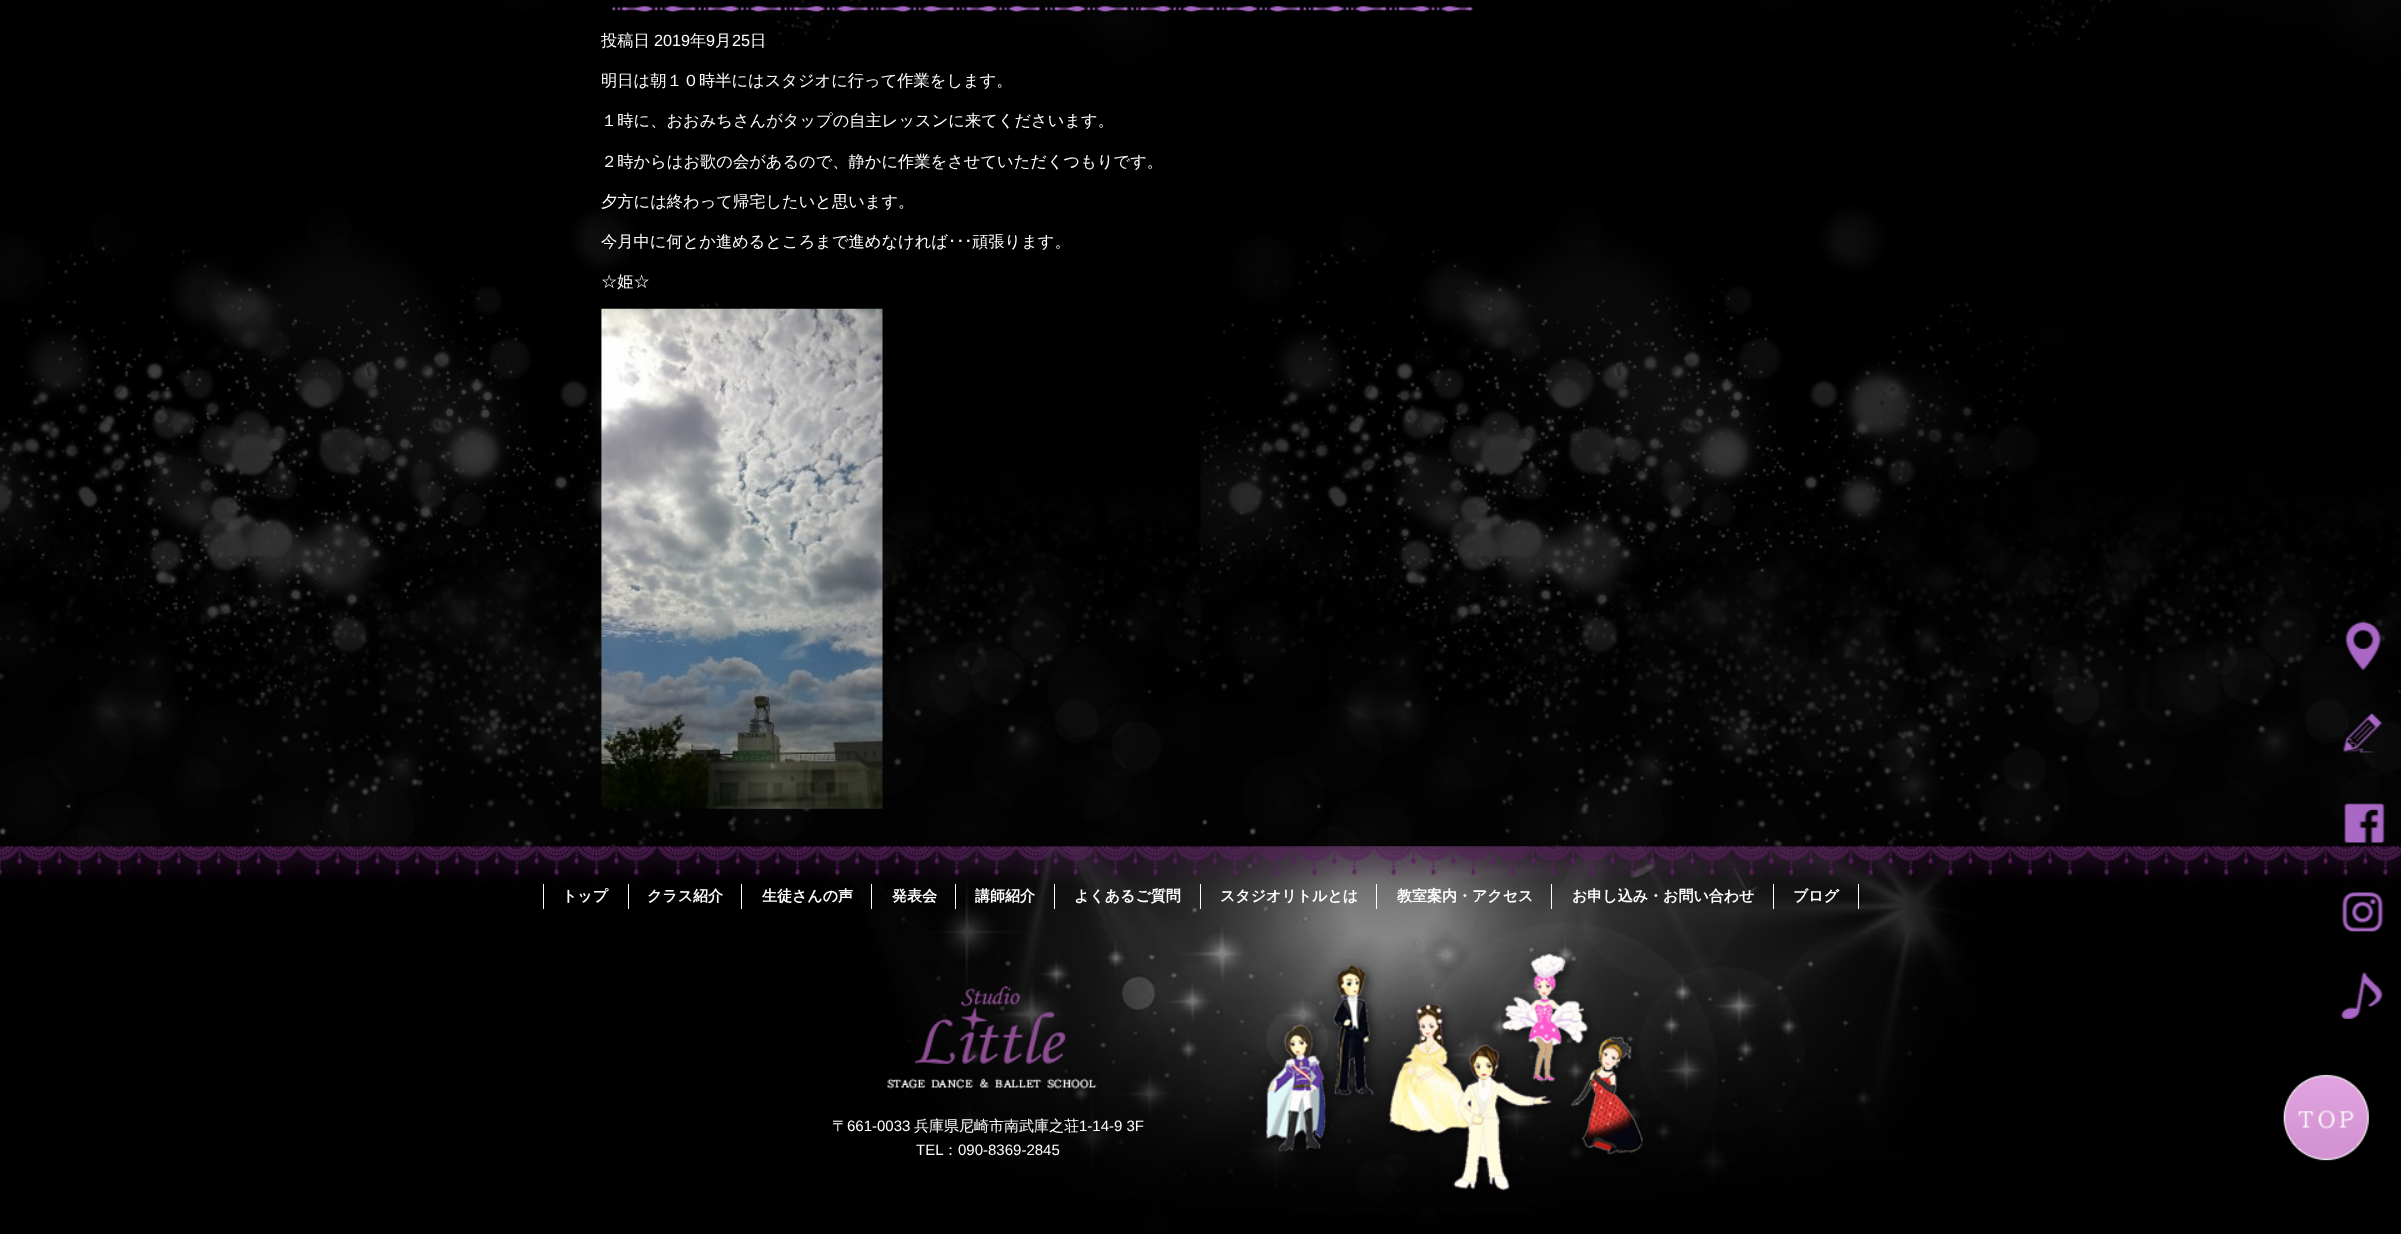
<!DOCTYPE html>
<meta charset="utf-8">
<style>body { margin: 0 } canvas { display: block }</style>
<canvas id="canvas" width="2401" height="1234"></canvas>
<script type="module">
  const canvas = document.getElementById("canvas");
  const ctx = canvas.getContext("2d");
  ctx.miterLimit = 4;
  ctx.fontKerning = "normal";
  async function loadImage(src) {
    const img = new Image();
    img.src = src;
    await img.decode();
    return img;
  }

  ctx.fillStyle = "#ffffff";
  ctx.fillRect(0, 0, 2401, 1234);
  ctx.drawImage(await loadImage("img1.png"), 0, 0, 2401, 847);
  ctx.drawImage(await loadImage("img2.png"), 612, 6, 861, 6);
  ctx.font = "500 16.25px WenQuanYi Zen Hei";
  ctx.fillText("投稿日", 601, 46);
  ctx.font = "16.25px Liberation Sans";
  ctx.fillText("2019", 654, 46);
  ctx.font = "500 16.25px WenQuanYi Zen Hei";
  ctx.fillText("年", 690, 46);
  ctx.font = "16.25px Liberation Sans";
  ctx.fillText("9", 706, 46);
  ctx.font = "500 16.25px WenQuanYi Zen Hei";
  ctx.fillText("月", 715, 46);
  ctx.font = "16.25px Liberation Sans";
  ctx.fillText("25", 732, 46);
  ctx.font = "500 16.25px WenQuanYi Zen Hei";
  ctx.fillText("日", 750, 46);
  ctx.fillText("明日は朝１０時半にはスタジオに行って作業をします。", 601, 86);
  ctx.fillText("１時に、おおみちさんがタップの自主レッスンに来てくださいます。", 601, 126);
  ctx.fillText("２時からはお歌の会があるので、静かに作業をさせていただくつもりです。", 601, 167);
  ctx.fillText("夕方には終わって帰宅したいと思います。", 601, 207);
  ctx.fillText("今月中に何とか進めるところまで進めなければ", 601, 247);
  ctx.font = "16.25px IPAPGothic";
  ctx.fillText("･･･", 948, 247);
  ctx.font = "500 16.25px WenQuanYi Zen Hei";
  ctx.fillText("頑張ります。", 972, 247);
  ctx.fillText("☆姫☆", 601, 287);
  ctx.drawImage(await loadImage("img3.png"), 601, 308, 282, 501);
  ctx.drawImage(await loadImage("img4.png"), 0, 846, 2401, 388);
  ctx.drawImage(await loadImage("img5.png"), 887, 952, 756, 239);
  ctx.fillRect(628, 884, 1, 25);
  ctx.fillRect(543, 884, 1, 25);
  ctx.font = "bold 15px WenQuanYi Zen Hei";
  ctx.fillText("トップ", 562, 901);
  ctx.fillRect(741, 884, 1, 25);
  ctx.fillText("クラス紹介", 647, 901);
  ctx.fillRect(871, 884, 1, 25);
  ctx.fillText("生徒さんの声", 762, 901);
  ctx.fillRect(955, 884, 1, 25);
  ctx.fillText("発表会", 892, 901);
  ctx.fillRect(1054, 884, 1, 25);
  ctx.fillText("講師紹介", 975, 901);
  ctx.fillRect(1200, 884, 1, 25);
  ctx.fillText("よくあるご質問", 1074, 901);
  ctx.fillRect(1376, 884, 1, 25);
  ctx.fillText("スタジオリトルとは", 1220, 901);
  ctx.fillRect(1551, 884, 1, 25);
  ctx.fillText("教室案内・アクセス", 1397, 901);
  ctx.fillRect(1773, 884, 1, 25);
  ctx.fillText("お申し込み・お問い合わせ", 1572, 901);
  ctx.fillRect(1858, 884, 1, 25);
  ctx.fillText("ブログ", 1793, 901);
  ctx.drawImage(await loadImage("img6.png"), 2345, 622, 36, 49);
  ctx.drawImage(await loadImage("img7.png"), 2343, 713, 39, 41);
  ctx.drawImage(await loadImage("img8.png"), 2344, 803, 41, 40);
  ctx.drawImage(await loadImage("img9.png"), 2342, 892, 42, 40);
  ctx.drawImage(await loadImage("img10.png"), 2340, 972, 44, 47);
  ctx.font = "500 15px WenQuanYi Zen Hei";
  ctx.fillText("〒", 832, 1131);
  ctx.font = "15px Liberation Sans";
  ctx.fillText("661-0033", 847, 1131);
  ctx.font = "500 15px WenQuanYi Zen Hei";
  ctx.fillText("兵庫県尼崎市南武庫之荘", 914, 1131);
  ctx.font = "15px Liberation Sans";
  ctx.fillText("1-14-9 3F", 1079, 1131);
  ctx.fillText("TEL", 916, 1155);
  ctx.font = "500 15px WenQuanYi Zen Hei";
  ctx.fillText("：", 943, 1155);
  ctx.font = "15px Liberation Sans";
  ctx.fillText("090-8369-2845", 958, 1155);
  ctx.drawImage(await loadImage("img11.png"), 2283, 1074, 86, 87);
</script>
